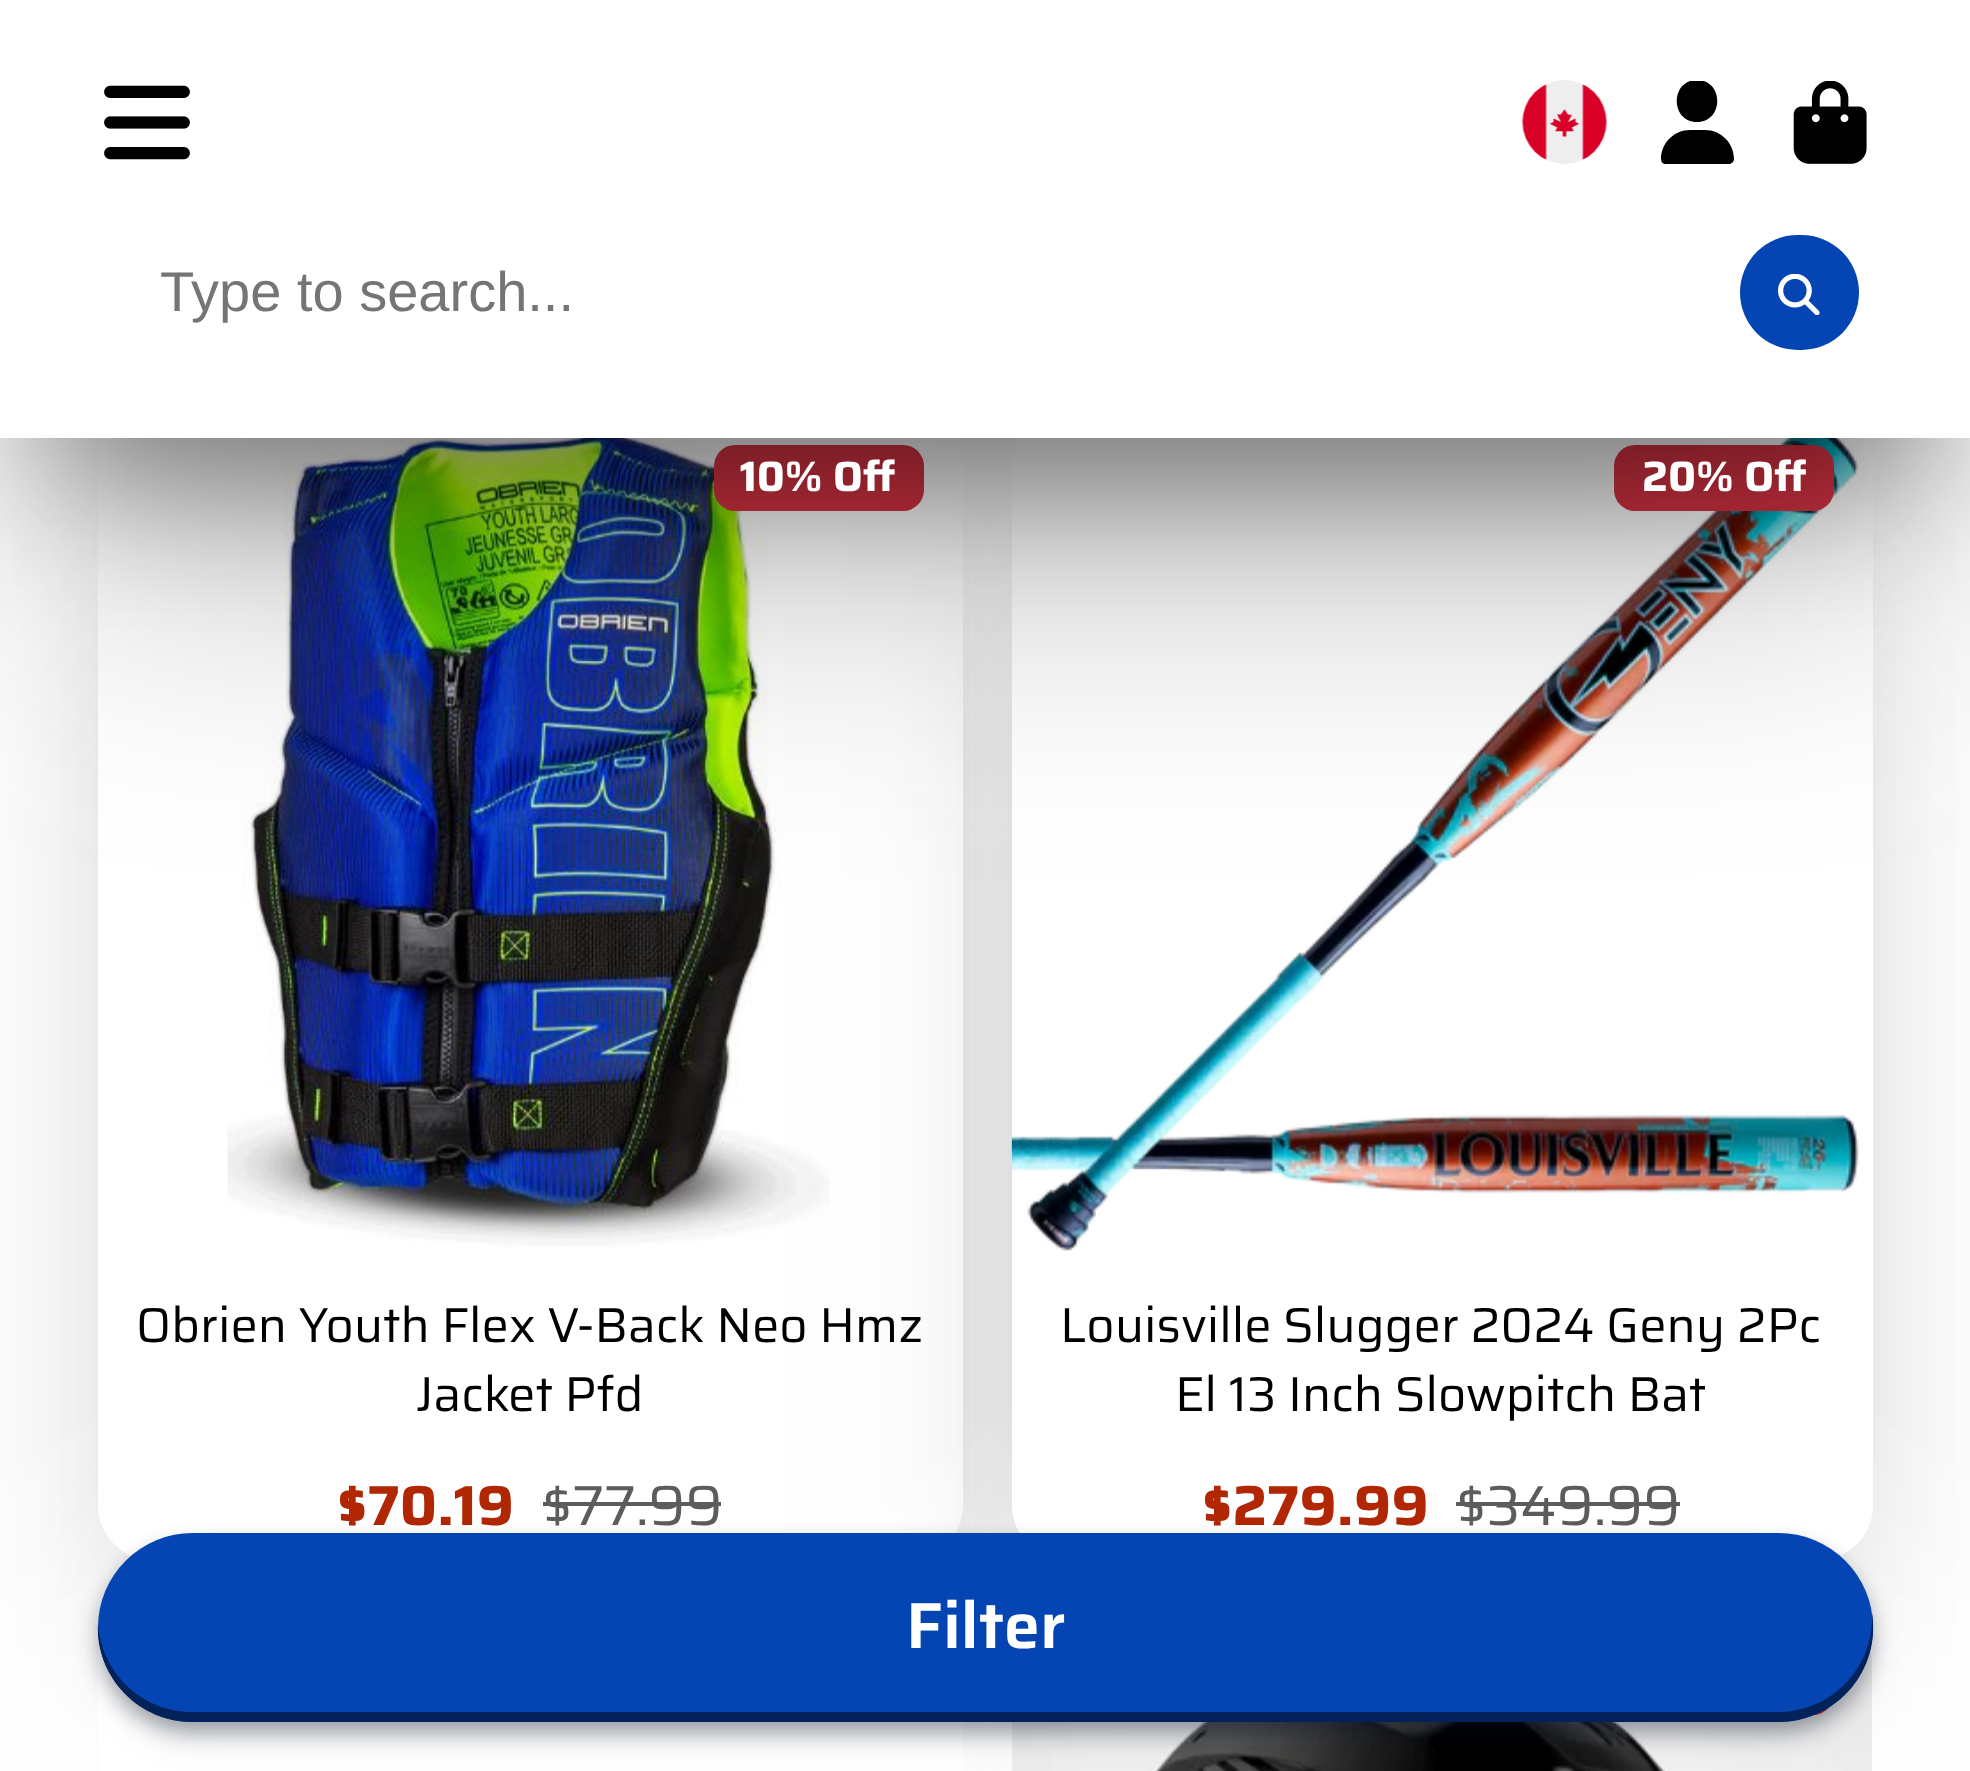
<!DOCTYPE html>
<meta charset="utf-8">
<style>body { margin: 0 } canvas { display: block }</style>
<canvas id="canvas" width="1970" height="1771"></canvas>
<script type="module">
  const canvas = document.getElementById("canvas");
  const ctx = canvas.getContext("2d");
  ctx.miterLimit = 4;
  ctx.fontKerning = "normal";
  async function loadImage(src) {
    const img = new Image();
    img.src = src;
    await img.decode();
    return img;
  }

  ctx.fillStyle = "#ffffff";
  ctx.fillRect(0, 0, 1970, 1771);
  ctx.fillStyle = "rgba(0, 0, 0, 0.3)";
  ctx.filter = "blur(92px)";
  ctx.beginPath();
  ctx.rect(189, 592, 683, 969);
  ctx.fill();
  ctx.filter = "none";
  ctx.fillStyle = "rgba(0, 0, 0, 0.1)";
  ctx.filter = "blur(153px)";
  ctx.beginPath();
  ctx.rect(161, 620, 742, 1032);
  ctx.fill();
  ctx.filter = "none";
  ctx.fillStyle = "#ffffff";
  ctx.beginPath();
  ctx.roundRect(98, 406, 865, 1155, 56);
  ctx.fill();
  ctx.drawImage(await loadImage("img5.png"), 227, 438, 603, 809);
  ctx.fillStyle = "#dc3545";
  ctx.beginPath();
  ctx.roundRect(714, 445, 210, 66, 21);
  ctx.fill();
  ctx.fillStyle = "rgba(0, 0, 0, 0.3)";
  ctx.filter = "blur(92px)";
  ctx.beginPath();
  ctx.rect(1103, 592, 679, 969);
  ctx.fill();
  ctx.filter = "none";
  ctx.fillStyle = "#5c5c5c";
  ctx.fillRect(543, 1502, 178, 4);
  ctx.fillStyle = "rgba(0, 0, 0, 0.1)";
  ctx.filter = "blur(153px)";
  ctx.beginPath();
  ctx.rect(1075, 620, 738, 1032);
  ctx.fill();
  ctx.filter = "none";
  ctx.fillStyle = "#ffffff";
  ctx.beginPath();
  ctx.roundRect(1012, 406, 861, 1155, 56);
  ctx.fill();
  ctx.drawImage(await loadImage("img6.png"), 1011, 438, 848, 813);
  ctx.fillStyle = "#dc3545";
  ctx.beginPath();
  ctx.roundRect(1614, 445, 220, 66, 21);
  ctx.fill();
  ctx.fillStyle = "rgba(0, 0, 0, 0.4)";
  ctx.filter = "blur(67.5px)";
  ctx.beginPath();
  ctx.rect(49, 140, 1873, 340);
  ctx.fill();
  ctx.filter = "none";
  ctx.fillStyle = "rgba(0, 0, 0, 0.3)";
  ctx.filter = "blur(153px)";
  ctx.beginPath();
  ctx.rect(49, 203, 1873, 340);
  ctx.fill();
  ctx.filter = "none";
  ctx.fillStyle = "#ffffff";
  ctx.fillRect(0, 0, 1970, 438);
  ctx.drawImage(await loadImage("img1.png"), 104, 85, 86, 75);
  ctx.drawImage(await loadImage("img2.png"), 1522, 80, 85, 84);
  ctx.save();
  ctx.beginPath();
  ctx.rect(1656, 81, 83, 83);
  ctx.clip();
  ctx.fillStyle = "#000000";
  ctx.beginPath();
  ctx.moveTo(1697, 122);
  ctx.bezierCurveTo(1724, 122, 1724, 80, 1697, 80);
  ctx.bezierCurveTo(1670, 80, 1670, 122, 1697, 122);
  ctx.closePath();
  ctx.moveTo(1690, 130);
  ctx.bezierCurveTo(1674, 130, 1661, 143, 1661, 159);
  ctx.bezierCurveTo(1661, 162, 1663, 164, 1666, 164);
  ctx.lineTo(1729, 164);
  ctx.bezierCurveTo(1731, 164, 1734, 162, 1734, 159);
  ctx.bezierCurveTo(1734, 143, 1721, 130, 1705, 130);
  ctx.closePath();
  ctx.fill();
  ctx.restore();
  ctx.drawImage(await loadImage("img3.png"), 1793, 81, 74, 83);
  ctx.font = "56px Liberation Sans";
  ctx.fillStyle = "#757575";
  ctx.fillText("Type to search...", 160, 311);
  ctx.fillStyle = "#0445b3";
  ctx.beginPath();
  ctx.roundRect(1740, 235, 119, 115, 57.5);
  ctx.fill();
  ctx.drawImage(await loadImage("img4.png"), 1778, 274, 42, 41);
  ctx.font = "bold 42.5px Saira";
  ctx.fillStyle = "#ffffff";
  ctx.fillText("10% Off", 740, 491);
  ctx.font = "49px Saira";
  ctx.fillStyle = "#000000";
  ctx.fillText("Obrien Youth Flex V-Back Neo Hmz", 136, 1342);
  ctx.fillText("Jacket Pfd", 416, 1411);
  ctx.font = "bold 56.5px Saira";
  ctx.fillStyle = "#b12704";
  ctx.fillText("$70.19", 337, 1525);
  ctx.font = "56.5px Saira";
  ctx.fillStyle = "#5c5c5c";
  ctx.fillText("$77.99", 542, 1525);
  ctx.font = "bold 42.5px Saira";
  ctx.fillStyle = "#ffffff";
  ctx.fillText("20% Off", 1642, 491);
  ctx.font = "49px Saira";
  ctx.fillStyle = "#000000";
  ctx.fillText("Louisville Slugger 2024 Geny 2Pc", 1060, 1342);
  ctx.fillText("El 13 Inch Slowpitch Bat", 1175, 1411);
  ctx.font = "bold 56.5px Saira";
  ctx.fillStyle = "#b12704";
  ctx.fillText("$279.99", 1202, 1525);
  ctx.font = "56.5px Saira";
  ctx.fillStyle = "#5c5c5c";
  ctx.fillText("$349.99", 1456, 1525);
  ctx.fillRect(1456, 1502, 224, 4);
  ctx.fillStyle = "#ffffff";
  ctx.beginPath();
  ctx.roundRect(98, 1610, 865, 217, 56);
  ctx.fill();
  ctx.beginPath();
  ctx.roundRect(1012, 1610, 861, 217, 56);
  ctx.fill();
  ctx.drawImage(await loadImage("img7.png"), 1012, 1648, 860, 123);
  ctx.fillStyle = "#dc3545";
  ctx.beginPath();
  ctx.roundRect(1617, 1645, 217, 70, 21);
  ctx.fill();
  ctx.fillStyle = "rgba(1, 11, 29, 0.15)";
  ctx.filter = "blur(19.5px)";
  ctx.beginPath();
  ctx.roundRect(109, 1561, 1753, 172, 86);
  ctx.fill();
  ctx.filter = "none";
  ctx.fillStyle = "rgba(1, 11, 29, 0.3)";
  ctx.filter = "blur(9.5px)";
  ctx.beginPath();
  ctx.roundRect(98, 1544, 1775, 189, 94.5);
  ctx.fill();
  ctx.filter = "none";
  ctx.fillStyle = "#0445b3";
  ctx.beginPath();
  ctx.roundRect(98, 1533, 1775, 189, 94.5);
  ctx.fill();
  ctx.fillStyle = "#022259";
  ctx.beginPath();
  ctx.moveTo(98, 1623);
  ctx.bezierCurveTo(95, 1677, 139, 1722, 192, 1722);
  ctx.lineTo(1778, 1722);
  ctx.bezierCurveTo(1837, 1722, 1881, 1670, 1872, 1613);
  ctx.lineTo(1872, 1618);
  ctx.bezierCurveTo(1872, 1670, 1830, 1712, 1778, 1712);
  ctx.lineTo(192, 1712);
  ctx.bezierCurveTo(142, 1712, 101, 1673, 98, 1623);
  ctx.closePath();
  ctx.fill();
  ctx.font = "600 65px Saira";
  ctx.fillStyle = "#ffffff";
  ctx.fillText("Filter", 906, 1648);
</script>
